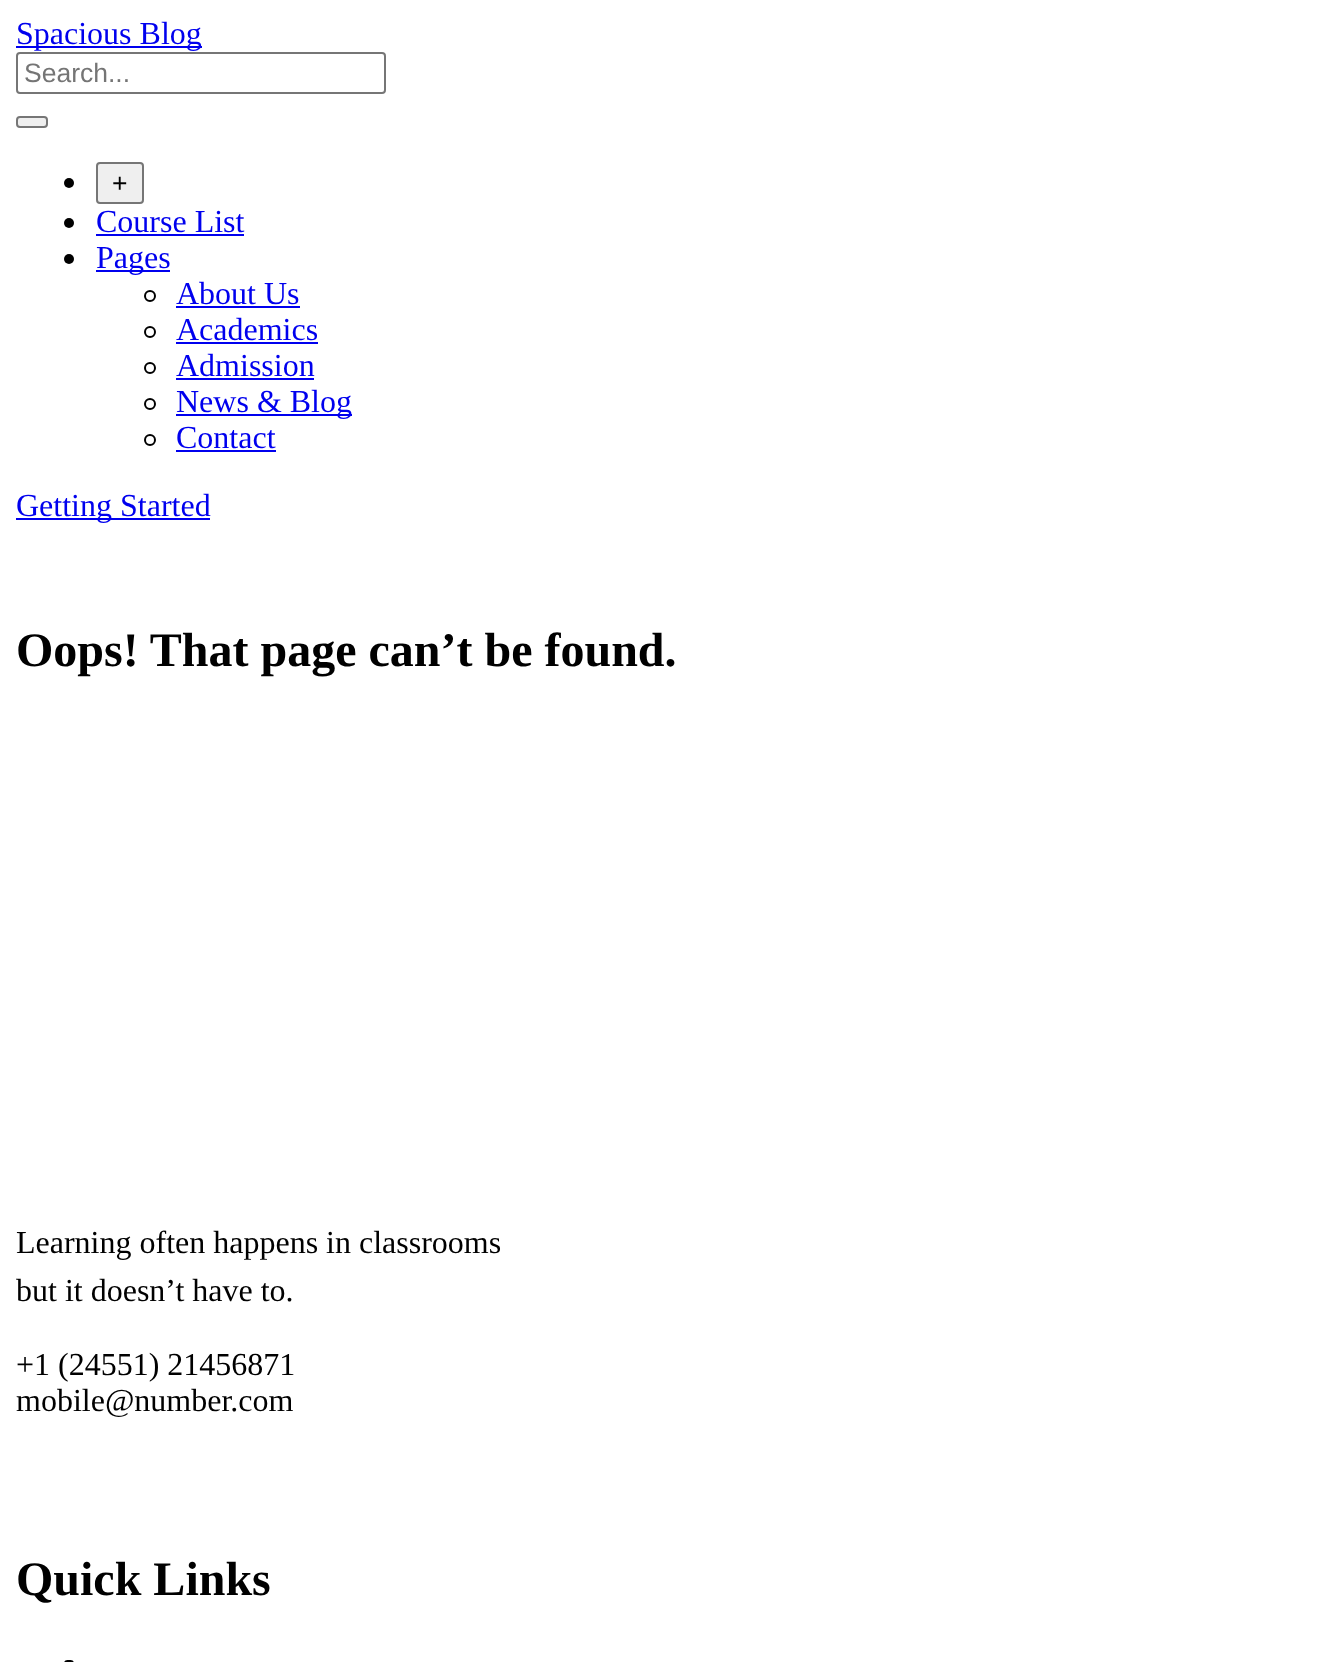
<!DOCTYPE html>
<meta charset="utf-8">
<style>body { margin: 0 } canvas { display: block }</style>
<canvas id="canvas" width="1342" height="1662"></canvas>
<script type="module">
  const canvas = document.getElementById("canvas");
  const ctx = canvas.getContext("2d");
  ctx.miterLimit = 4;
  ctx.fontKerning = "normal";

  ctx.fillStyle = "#ffffff";
  ctx.fillRect(0, 0, 1342, 1662);
  ctx.fillStyle = "#0000ee";
  ctx.fillRect(16, 46, 186, 2);
  ctx.font = "32px Liberation Serif";
  ctx.fillText("Spacious Blog", 16, 44);
  ctx.beginPath();
  ctx.roundRect(17, 53, 368, 40, 3);
  ctx.strokeStyle = "#767676";
  ctx.lineWidth = 2;
  ctx.stroke();
  ctx.font = "26.5px Liberation Sans";
  ctx.fillStyle = "#757575";
  ctx.fillText("Search...", 24, 82);
  ctx.fillStyle = "#efefef";
  ctx.beginPath();
  ctx.roundRect(17, 117, 30, 10, 3);
  ctx.fill();
  ctx.stroke();
  ctx.fillStyle = "#000000";
  ctx.beginPath();
  ctx.arc(69, 183, 5, 0, Math.PI * 2);
  ctx.fill();
  ctx.fillStyle = "#efefef";
  ctx.beginPath();
  ctx.roundRect(97, 163, 46, 40, 3);
  ctx.fill();
  ctx.stroke();
  ctx.fillStyle = "#000000";
  ctx.fillText("+", 112, 192);
  ctx.beginPath();
  ctx.arc(69, 223, 5, 0, Math.PI * 2);
  ctx.fill();
  ctx.font = "32px Liberation Serif";
  ctx.fillStyle = "#0000ee";
  ctx.fillText("Course List", 96, 232);
  ctx.fillRect(96, 234, 148, 2);
  ctx.fillStyle = "#000000";
  ctx.beginPath();
  ctx.arc(69, 259, 5, 0, Math.PI * 2);
  ctx.fill();
  ctx.fillStyle = "#0000ee";
  ctx.fillRect(96, 270, 74, 2);
  ctx.fillText("Pages", 96, 268);
  ctx.beginPath();
  ctx.arc(150, 296, 5, 0, Math.PI * 2);
  ctx.strokeStyle = "#000000";
  ctx.stroke();
  ctx.fillText("About Us", 176, 304);
  ctx.fillRect(176, 306, 124, 2);
  ctx.beginPath();
  ctx.arc(150, 332, 5, 0, Math.PI * 2);
  ctx.stroke();
  ctx.fillText("Academics", 176, 340);
  ctx.fillRect(176, 342, 142, 2);
  ctx.beginPath();
  ctx.arc(150, 368, 5, 0, Math.PI * 2);
  ctx.stroke();
  ctx.fillText("Admission", 176, 376);
  ctx.fillRect(176, 378, 138, 2);
  ctx.beginPath();
  ctx.arc(150, 404, 5, 0, Math.PI * 2);
  ctx.stroke();
  ctx.fillRect(176, 414, 176, 2);
  ctx.fillText("News & Blog", 176, 412);
  ctx.beginPath();
  ctx.arc(150, 440, 5, 0, Math.PI * 2);
  ctx.stroke();
  ctx.fillText("Contact", 176, 448);
  ctx.fillRect(176, 450, 100, 2);
  ctx.fillRect(16, 518, 194, 2);
  ctx.fillText("Getting Started", 16, 516);
  ctx.font = "bold 48px Liberation Serif";
  ctx.fillStyle = "#000000";
  ctx.fillText("Oops! That page can’t be found.", 16, 666);
  ctx.font = "32px Liberation Serif";
  ctx.fillText("Learning often happens in classrooms", 16, 1253);
  ctx.fillText("but it doesn’t have to.", 16, 1301);
  ctx.fillText("+1 (24551) 21456871", 16, 1375);
  ctx.fillText("mobile@number.com", 16, 1411);
  ctx.font = "bold 48px Liberation Serif";
  ctx.fillText("Quick Links", 16, 1595);
  ctx.beginPath();
  ctx.roundRect(64, 1660, 10, 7, 5);
  ctx.fill();
</script>
